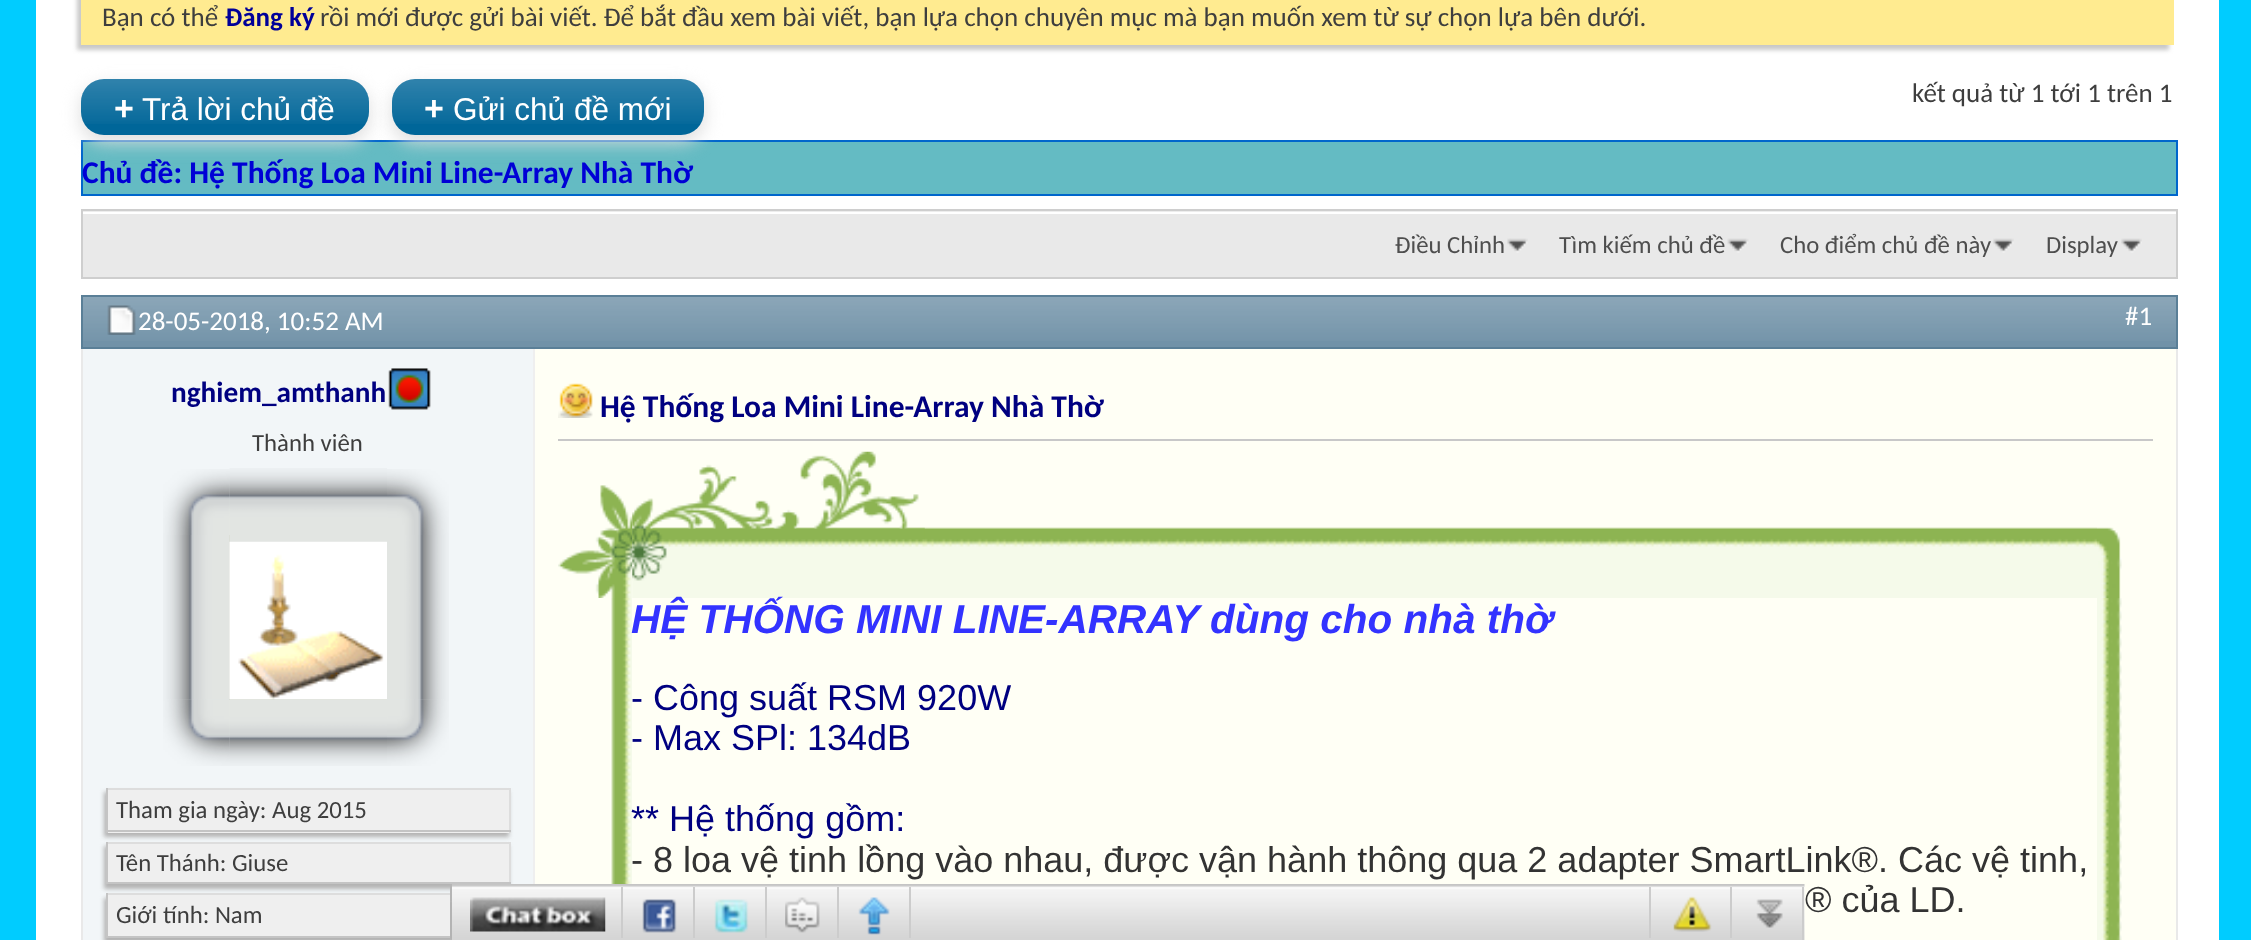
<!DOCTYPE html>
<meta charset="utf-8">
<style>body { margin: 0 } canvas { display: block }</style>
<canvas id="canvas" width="2251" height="940"></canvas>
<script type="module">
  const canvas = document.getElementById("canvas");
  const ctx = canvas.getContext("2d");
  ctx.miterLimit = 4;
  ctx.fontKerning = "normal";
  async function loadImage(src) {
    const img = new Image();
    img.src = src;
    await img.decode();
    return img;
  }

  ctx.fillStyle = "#00ccff";
  ctx.fillRect(0, 0, 2251, 940);
  ctx.fillStyle = "#ffffff";
  ctx.fillRect(36, 0, 2183, 940);
  ctx.fillStyle = "#c8c8c8";
  ctx.filter = "blur(2px)";
  ctx.beginPath();
  ctx.rect(77, -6, 2092, 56);
  ctx.fill();
  ctx.filter = "none";
  ctx.fillStyle = "#ffeb90";
  ctx.fillRect(81, 0, 2093, 45);
  ctx.font = "27px Carlito";
  ctx.fillStyle = "#3e3e3e";
  ctx.fillText("Bạn có thể", 102, 26);
  ctx.font = "bold 27px Carlito";
  ctx.fillStyle = "#000099";
  ctx.fillText("Đăng ký", 225, 26);
  ctx.font = "27px Carlito";
  ctx.fillStyle = "#3e3e3e";
  ctx.fillText("rồi mới được gửi bài viết. Để bắt đầu xem bài viết, bạn lựa chọn chuyên mục mà bạn muốn xem từ sự chọn lựa bên dưới.", 320, 26);
  ctx.fillStyle = "#64bbc3";
  ctx.beginPath();
  ctx.rect(82, 141, 2095, 54);
  ctx.fill();
  ctx.strokeStyle = "#0066cc";
  ctx.lineWidth = 2;
  ctx.stroke();
  ctx.fillStyle = "#dddddd";
  ctx.filter = "blur(9px)";
  ctx.beginPath();
  ctx.roundRect(81, 86, 288, 56, 23);
  ctx.fill();
  ctx.filter = "none";
  ctx.fillStyle = "#006699";
  ctx.beginPath();
  ctx.roundRect(81, 79, 288, 56, 23);
  ctx.fill();
  ctx.drawImage(await loadImage("img1.png"), 81, 79, 288, 45);
  ctx.font = "bold 34px Liberation Sans";
  ctx.fillStyle = "#ffffff";
  ctx.fillText("+", 114, 120);
  ctx.font = "31.5px Liberation Sans";
  ctx.fillText("Trả lời chủ đề", 142, 120);
  ctx.fillStyle = "#dddddd";
  ctx.filter = "blur(9px)";
  ctx.beginPath();
  ctx.roundRect(392, 86, 312, 56, 23);
  ctx.fill();
  ctx.filter = "none";
  ctx.fillStyle = "#006699";
  ctx.beginPath();
  ctx.roundRect(392, 79, 312, 56, 23);
  ctx.fill();
  ctx.drawImage(await loadImage("img2.png"), 392, 79, 312, 45);
  ctx.font = "bold 34px Liberation Sans";
  ctx.fillStyle = "#ffffff";
  ctx.fillText("+", 424, 120);
  ctx.font = "31.5px Liberation Sans";
  ctx.fillText("Gửi chủ đề mới", 453, 120);
  ctx.font = "27px Carlito";
  ctx.fillStyle = "#3e3e3e";
  ctx.fillText("kết quả từ 1 tới 1 trên 1", 1912, 102);
  ctx.font = "bold 31.5px Carlito";
  ctx.fillStyle = "#0000d6";
  ctx.fillText("Chủ đề: Hệ Thống Loa Mini Line-Array Nhà Thờ", 82, 183);
  ctx.fillStyle = "#e9e9e9";
  ctx.fillRect(83, 214, 2093, 63);
  ctx.fillStyle = "#ededed";
  ctx.fillRect(81, 211, 2097, 1);
  ctx.strokeStyle = "#cecece";
  ctx.strokeRect(82, 210, 2095, 68);
  ctx.drawImage(await loadImage("img3.png"), 1507, 238, 21, 15);
  ctx.font = "24.75px Carlito";
  ctx.fillStyle = "#4e4e4e";
  ctx.fillText("Ðiều Chỉnh", 1395, 253);
  ctx.drawImage(await loadImage("img4.png"), 1727, 238, 22, 15);
  ctx.fillText("Tìm kiếm chủ đề", 1559, 253);
  ctx.drawImage(await loadImage("img3.png"), 1993, 238, 21, 15);
  ctx.fillText("Cho điểm chủ đề này", 1780, 253);
  ctx.drawImage(await loadImage("img5.png"), 2121, 238, 21, 15);
  ctx.fillText("Display", 2046, 253);
  ctx.strokeStyle = "#e9e9e9";
  ctx.strokeRect(82, 296, 2095, 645);
  ctx.fillStyle = "#7192a8";
  ctx.fillRect(83, 297, 2093, 50);
  ctx.drawImage(await loadImage("img6.png"), 83, 297, 2093, 44);
  ctx.strokeStyle = "#5a7f97";
  ctx.strokeRect(82, 296, 2095, 52);
  ctx.drawImage(await loadImage("img7.png"), 107, 305, 29, 30);
  ctx.font = "27px Carlito";
  ctx.fillStyle = "#ffffff";
  ctx.fillText("28-05-2018, 10:52 AM", 138, 330);
  ctx.fillText("#1", 2125, 325);
  ctx.fillStyle = "#f2f6f8";
  ctx.fillRect(83, 349, 450, 591);
  ctx.font = "bold 29.25px Carlito";
  ctx.fillStyle = "#000080";
  ctx.fillText("nghiem_amthanh", 171, 402);
  ctx.drawImage(await loadImage("img8.png"), 388, 368, 43, 42);
  ctx.font = "24.75px Carlito";
  ctx.fillStyle = "#3e3e3e";
  ctx.fillText("Thành viên", 252, 451);
  ctx.drawImage(await loadImage("img10.png"), 229, 468, 158, 67);
  ctx.drawImage(await loadImage("img9.png"), 163, 469, 67, 66);
  ctx.drawImage(await loadImage("img11.png"), 387, 469, 62, 66);
  ctx.drawImage(await loadImage("img12.png"), 163, 535, 67, 165);
  ctx.fillStyle = "rgba(165, 165, 140, 0.2)";
  ctx.fillRect(229, 535, 158, 165);
  ctx.drawImage(await loadImage("img16.png"), 229, 699, 158, 67);
  ctx.drawImage(await loadImage("img13.png"), 229, 541, 158, 159);
  ctx.drawImage(await loadImage("img14.png"), 387, 535, 62, 165);
  ctx.drawImage(await loadImage("img15.png"), 163, 699, 67, 67);
  ctx.drawImage(await loadImage("img17.png"), 387, 699, 62, 67);
  ctx.fillStyle = "#b3b3b3";
  ctx.filter = "blur(2px)";
  ctx.beginPath();
  ctx.rect(104, 792, 405, 45);
  ctx.fill();
  ctx.filter = "none";
  ctx.fillStyle = "#efefef";
  ctx.fillRect(108, 790, 401, 43);
  ctx.fillStyle = "#dddddd";
  ctx.fillRect(106, 788, 405, 2);
  ctx.fillRect(509, 788, 2, 45);
  ctx.fillStyle = "#c4c4c4";
  ctx.fillRect(106, 830, 405, 2);
  ctx.fillRect(106, 788, 2, 45);
  ctx.fillStyle = "#3e3e3e";
  ctx.fillText("Tham gia ngày: Aug 2015", 116, 818);
  ctx.fillStyle = "#b3b3b3";
  ctx.filter = "blur(2px)";
  ctx.beginPath();
  ctx.rect(104, 846, 405, 43);
  ctx.fill();
  ctx.filter = "none";
  ctx.fillStyle = "#efefef";
  ctx.fillRect(108, 844, 401, 38);
  ctx.fillStyle = "#dddddd";
  ctx.fillRect(106, 842, 405, 2);
  ctx.fillRect(509, 842, 2, 42);
  ctx.fillStyle = "#c4c4c4";
  ctx.fillRect(106, 882, 405, 2);
  ctx.fillRect(106, 842, 2, 42);
  ctx.fillStyle = "#3e3e3e";
  ctx.fillText("Tên Thánh: Giuse", 116, 871);
  ctx.fillStyle = "#b3b3b3";
  ctx.filter = "blur(2px)";
  ctx.beginPath();
  ctx.rect(104, 898, 405, 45);
  ctx.fill();
  ctx.filter = "none";
  ctx.fillStyle = "#efefef";
  ctx.fillRect(108, 895, 342, 41);
  ctx.fillStyle = "#dddddd";
  ctx.fillRect(106, 893, 344, 2);
  ctx.fillStyle = "#c4c4c4";
  ctx.fillRect(106, 936, 344, 2);
  ctx.fillRect(106, 893, 2, 45);
  ctx.fillStyle = "#3e3e3e";
  ctx.fillText("Giới tính: Nam", 116, 923);
  ctx.fillStyle = "#fffff5";
  ctx.fillRect(535, 349, 1641, 591);
  ctx.fillStyle = "#efefef";
  ctx.fillRect(533, 349, 2, 535);
  ctx.fillStyle = "#c8c8c8";
  ctx.fillRect(558, 439, 1595, 2);
  ctx.drawImage(await loadImage("img18.png"), 558, 383, 35, 35);
  ctx.font = "bold 31.5px Carlito";
  ctx.fillStyle = "#000080";
  ctx.fillText("Hệ Thống Loa Mini Line-Array Nhà Thờ", 600, 417);
  ctx.drawImage(await loadImage("img20.png"), 632, 527, 1465, 71);
  ctx.drawImage(await loadImage("img19.png"), 558, 485, 75, 113);
  ctx.drawImage(await loadImage("img21.png"), 632, 451, 293, 130);
  ctx.drawImage(await loadImage("img22.png"), 2097, 527, 25, 71);
  ctx.drawImage(await loadImage("img23.png"), 611, 598, 21, 286);
  ctx.font = "italic bold 40.5px Liberation Sans";
  ctx.fillStyle = "#3333ff";
  ctx.fillText("HỆ THỐNG MINI LINE-ARRAY dùng cho nhà thờ", 631, 633);
  ctx.font = "36px Liberation Sans";
  ctx.fillStyle = "#000080";
  ctx.fillText("- Công suất RSM 920W", 631, 710);
  ctx.fillText("- Max SPl: 134dB", 631, 750);
  ctx.fillText("** Hệ thống gồm:", 631, 831);
  ctx.fillStyle = "#333333";
  ctx.fillText("- 8 loa vệ tinh lồng vào nhau, được vận hành thông qua 2 adapter SmartLink®. Các vệ tinh,", 631, 872);
  ctx.fillText("® của LD.", 1805, 912);
  ctx.drawImage(await loadImage("img24.png"), 2097, 598, 25, 342);
  ctx.drawImage(await loadImage("img25.png"), 452, 884, 1353, 56);
  ctx.fillStyle = "#b5b5b5";
  ctx.fillRect(450, 884, 2, 17);
  ctx.fillStyle = "#cccccc";
  ctx.fillRect(621, 887, 2, 51);
  ctx.drawImage(await loadImage("img26.png"), 470, 897, 136, 35);
  ctx.fillRect(693, 887, 2, 51);
  ctx.drawImage(await loadImage("img27.png"), 642, 899, 35, 34);
  ctx.fillRect(765, 887, 2, 51);
  ctx.drawImage(await loadImage("img28.png"), 714, 899, 35, 34);
  ctx.fillRect(837, 887, 2, 51);
  ctx.drawImage(await loadImage("img29.png"), 785, 897, 35, 36);
  ctx.fillRect(909, 887, 2, 51);
  ctx.drawImage(await loadImage("img30.png"), 858, 897, 32, 38);
  ctx.drawImage(await loadImage("img31.png"), 1673, 896, 39, 36);
  ctx.fillRect(1730, 887, 2, 51);
  ctx.fillRect(1649, 887, 2, 51);
  ctx.drawImage(await loadImage("img32.png"), 1756, 899, 27, 29);
  ctx.fillRect(1802, 887, 2, 53);
</script>
